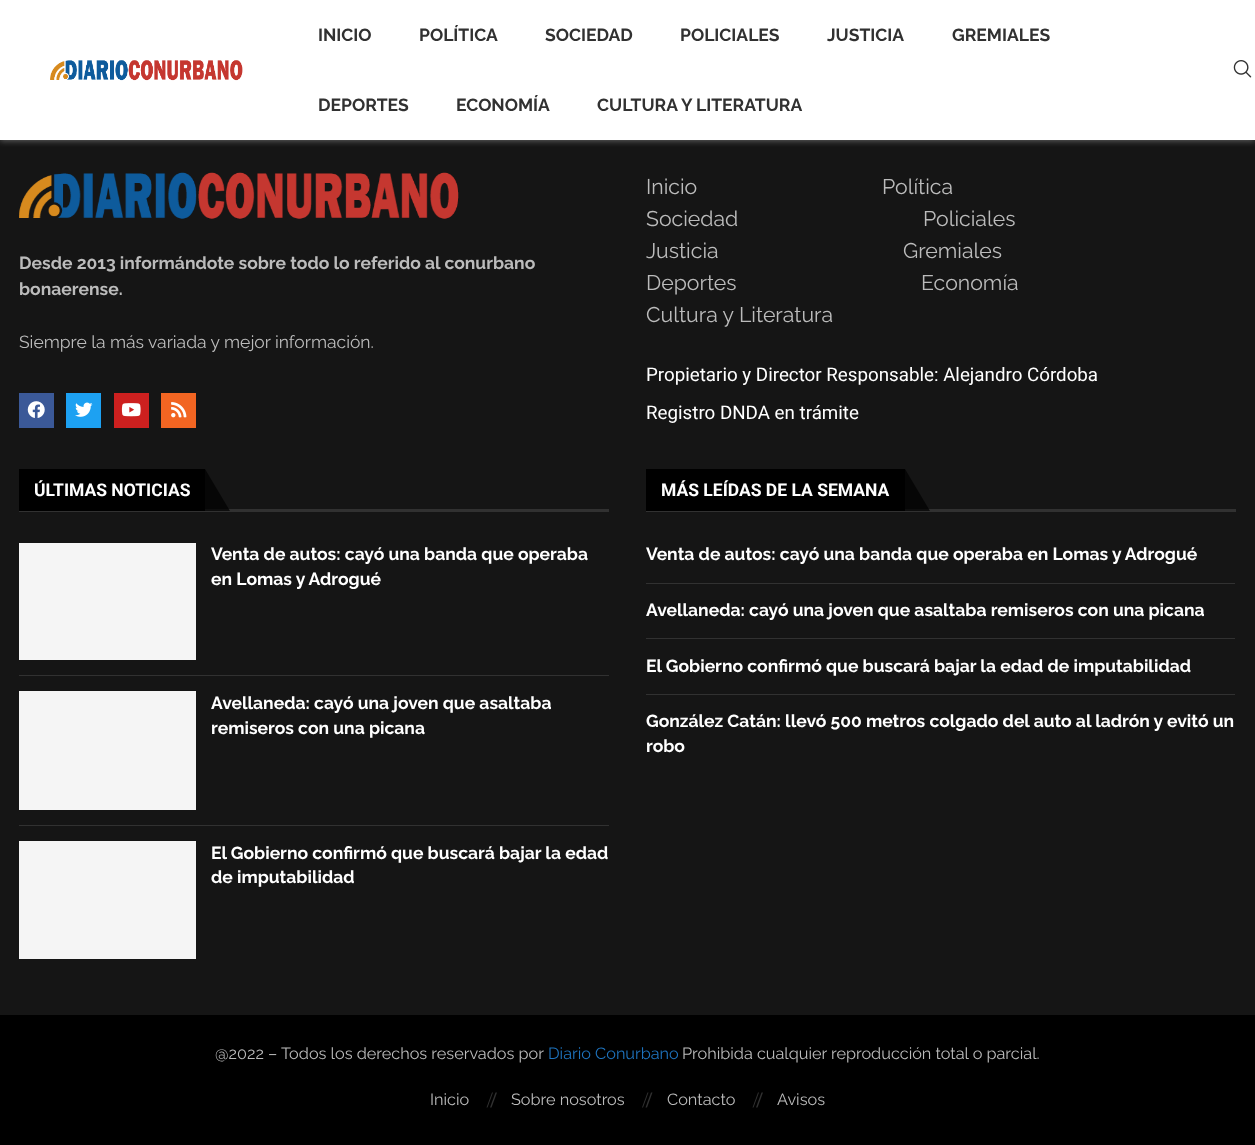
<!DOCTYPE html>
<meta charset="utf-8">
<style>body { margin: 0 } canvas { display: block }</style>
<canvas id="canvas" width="1255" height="1145"></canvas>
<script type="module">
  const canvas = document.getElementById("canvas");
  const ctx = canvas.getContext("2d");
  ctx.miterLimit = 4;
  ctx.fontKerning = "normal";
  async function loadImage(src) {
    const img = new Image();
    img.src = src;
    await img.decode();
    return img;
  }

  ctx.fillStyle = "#151515";
  ctx.fillRect(0, 0, 1255, 1145);
  ctx.fillStyle = "rgba(190, 190, 190, 0.46)";
  ctx.filter = "blur(3px)";
  ctx.beginPath();
  ctx.rect(0, 1, 1255, 140);
  ctx.fill();
  ctx.filter = "none";
  ctx.fillStyle = "#ffffff";
  ctx.fillRect(0, 0, 1255, 140);
  ctx.drawImage(await loadImage("img1.png"), 50, 60, 193, 21);
  ctx.font = "bold 17.5px Raleway";
  ctx.fillStyle = "#313131";
  ctx.fillText("INICIO", 318, 41);
  ctx.fillText("POLÍTICA", 419, 41);
  ctx.fillText("SOCIEDAD", 545, 41);
  ctx.fillText("POLICIALES", 680, 41);
  ctx.fillText("JUSTICIA", 827, 41);
  ctx.fillText("GREMIALES", 952, 41);
  ctx.fillText("DEPORTES", 318, 111);
  ctx.fillText("ECONOMÍA", 456, 111);
  ctx.fillText("CULTURA Y LITERATURA", 597, 111);
  ctx.drawImage(await loadImage("img2.png"), 1233, 60, 19, 18);
  ctx.drawImage(await loadImage("img3.png"), 19, 172, 440, 47);
  ctx.fillStyle = "#bbbbbb";
  ctx.fillText("Desde 2013 informándote sobre todo lo referido al conurbano", 19, 269);
  ctx.fillText("bonaerense.", 19, 295);
  ctx.font = "17.5px Raleway";
  ctx.fillText("Siempre la más variada y mejor información.", 19, 348);
  ctx.fillStyle = "#3b5998";
  ctx.fillRect(19, 393, 35, 35);
  ctx.drawImage(await loadImage("img4.png"), 27, 401, 18, 17);
  ctx.fillStyle = "#1da1f2";
  ctx.fillRect(66, 393, 35, 35);
  ctx.drawImage(await loadImage("img5.png"), 75, 402, 18, 15);
  ctx.fillStyle = "#cd201f";
  ctx.fillRect(114, 393, 35, 35);
  ctx.drawImage(await loadImage("img6.png"), 121, 403, 20, 14);
  ctx.fillStyle = "#f26522";
  ctx.fillRect(161, 393, 35, 35);
  ctx.drawImage(await loadImage("img7.png"), 171, 402, 16, 16);
  ctx.font = "21.25px Raleway";
  ctx.fillStyle = "#bbbbbb";
  ctx.fillText("Inicio", 646, 194);
  ctx.fillText("Política", 882, 194);
  ctx.fillText("Sociedad", 646, 226);
  ctx.fillText("Policiales", 923, 226);
  ctx.fillText("Justicia", 646, 258);
  ctx.fillText("Gremiales", 903, 258);
  ctx.fillText("Deportes", 646, 290);
  ctx.fillText("Economía", 921, 290);
  ctx.fillText("Cultura y Literatura", 646, 322);
  ctx.font = "18.75px Roboto";
  ctx.fillStyle = "#ffffff";
  ctx.fillText("Propietario y Director Responsable: Alejandro Córdoba", 646, 381);
  ctx.fillText("Registro DNDA en trámite", 646, 419);
  ctx.fillStyle = "#313131";
  ctx.fillRect(19, 509, 590, 3);
  ctx.fillStyle = "#000000";
  ctx.fillRect(19, 469, 186, 42);
  ctx.font = "bold 17.5px Roboto";
  ctx.fillStyle = "#ffffff";
  ctx.fillText("ÚLTIMAS NOTICIAS", 34, 496);
  ctx.fillStyle = "rgba(0, 0, 0, 0.7)";
  ctx.beginPath();
  ctx.moveTo(230, 511);
  ctx.lineTo(205, 511);
  ctx.lineTo(205, 469);
  ctx.closePath();
  ctx.fill();
  ctx.fillStyle = "#313131";
  ctx.fillRect(19, 675, 590, 1);
  ctx.fillStyle = "#f5f5f5";
  ctx.fillRect(19, 543, 177, 117);
  ctx.font = "bold 17.5px Raleway";
  ctx.fillStyle = "#ffffff";
  ctx.fillText("Venta de autos: cayó una banda que operaba", 211, 560);
  ctx.fillText("en Lomas y Adrogué", 211, 585);
  ctx.fillStyle = "#313131";
  ctx.fillRect(19, 825, 590, 1);
  ctx.fillStyle = "#f5f5f5";
  ctx.fillRect(19, 691, 177, 119);
  ctx.fillStyle = "#ffffff";
  ctx.fillText("Avellaneda: cayó una joven que asaltaba", 211, 709);
  ctx.fillText("remiseros con una picana", 211, 734);
  ctx.fillStyle = "#f5f5f5";
  ctx.fillRect(19, 841, 177, 118);
  ctx.fillStyle = "#ffffff";
  ctx.fillText("El Gobierno confirmó que buscará bajar la edad", 211, 859);
  ctx.fillText("de imputabilidad", 211, 883);
  ctx.fillStyle = "#313131";
  ctx.fillRect(646, 509, 590, 3);
  ctx.fillStyle = "#000000";
  ctx.fillRect(646, 469, 259, 42);
  ctx.font = "bold 17.5px Roboto";
  ctx.fillStyle = "#ffffff";
  ctx.fillText("MÁS LEÍDAS DE LA SEMANA", 661, 496);
  ctx.fillStyle = "rgba(0, 0, 0, 0.7)";
  ctx.beginPath();
  ctx.moveTo(930, 511);
  ctx.lineTo(905, 511);
  ctx.lineTo(905, 469);
  ctx.closePath();
  ctx.fill();
  ctx.fillStyle = "#313131";
  ctx.fillRect(646, 583, 589, 1);
  ctx.font = "bold 17.5px Raleway";
  ctx.fillStyle = "#ffffff";
  ctx.fillText("Venta de autos: cayó una banda que operaba en Lomas y Adrogué", 646, 560);
  ctx.fillStyle = "#313131";
  ctx.fillRect(646, 638, 589, 1);
  ctx.fillStyle = "#ffffff";
  ctx.fillText("Avellaneda: cayó una joven que asaltaba remiseros con una picana", 646, 616);
  ctx.fillStyle = "#313131";
  ctx.fillRect(646, 694, 589, 1);
  ctx.fillStyle = "#ffffff";
  ctx.fillText("El Gobierno confirmó que buscará bajar la edad de imputabilidad", 646, 672);
  ctx.fillText("González Catán: llevó 500 metros colgado del auto al ladrón y evitó un", 646, 727);
  ctx.fillText("robo", 646, 752);
  ctx.fillStyle = "#000000";
  ctx.fillRect(0, 1015, 1255, 130);
  ctx.font = "16.25px Raleway";
  ctx.fillStyle = "#bbbbbb";
  ctx.fillText("@2022 – Todos los derechos reservados por", 215, 1059);
  ctx.fillStyle = "#1e73be";
  ctx.fillText("Diario Conurbano", 548, 1059);
  ctx.fillStyle = "#bbbbbb";
  ctx.fillText("Prohibida cualquier reproducción total o parcial.", 682, 1059);
  ctx.fillText("Inicio", 430, 1105);
  ctx.fillStyle = "#313131";
  ctx.beginPath();
  ctx.moveTo(495.5, 1092.5);
  ctx.lineTo(497, 1092.5);
  ctx.lineTo(491.5, 1107.5);
  ctx.lineTo(490, 1107.5);
  ctx.closePath();
  ctx.fill();
  ctx.beginPath();
  ctx.moveTo(492, 1092.5);
  ctx.lineTo(493, 1092.5);
  ctx.lineTo(487.5, 1107.5);
  ctx.lineTo(486.5, 1107.5);
  ctx.closePath();
  ctx.fill();
  ctx.fillStyle = "#bbbbbb";
  ctx.fillText("Sobre nosotros", 511, 1105);
  ctx.fillStyle = "#313131";
  ctx.beginPath();
  ctx.moveTo(651, 1092.5);
  ctx.lineTo(652.5, 1092.5);
  ctx.lineTo(647, 1107.5);
  ctx.lineTo(645.5, 1107.5);
  ctx.closePath();
  ctx.fill();
  ctx.beginPath();
  ctx.moveTo(647.5, 1092.5);
  ctx.lineTo(648.5, 1092.5);
  ctx.lineTo(643, 1107.5);
  ctx.lineTo(642, 1107.5);
  ctx.closePath();
  ctx.fill();
  ctx.fillStyle = "#bbbbbb";
  ctx.fillText("Contacto", 667, 1105);
  ctx.fillStyle = "#313131";
  ctx.beginPath();
  ctx.moveTo(761.5, 1092.5);
  ctx.lineTo(763, 1092.5);
  ctx.lineTo(757.5, 1107.5);
  ctx.lineTo(756, 1107.5);
  ctx.closePath();
  ctx.fill();
  ctx.beginPath();
  ctx.moveTo(758, 1092.5);
  ctx.lineTo(759, 1092.5);
  ctx.lineTo(753.5, 1107.5);
  ctx.lineTo(752.5, 1107.5);
  ctx.closePath();
  ctx.fill();
  ctx.fillStyle = "#bbbbbb";
  ctx.fillText("Avisos", 777, 1105);
</script>
